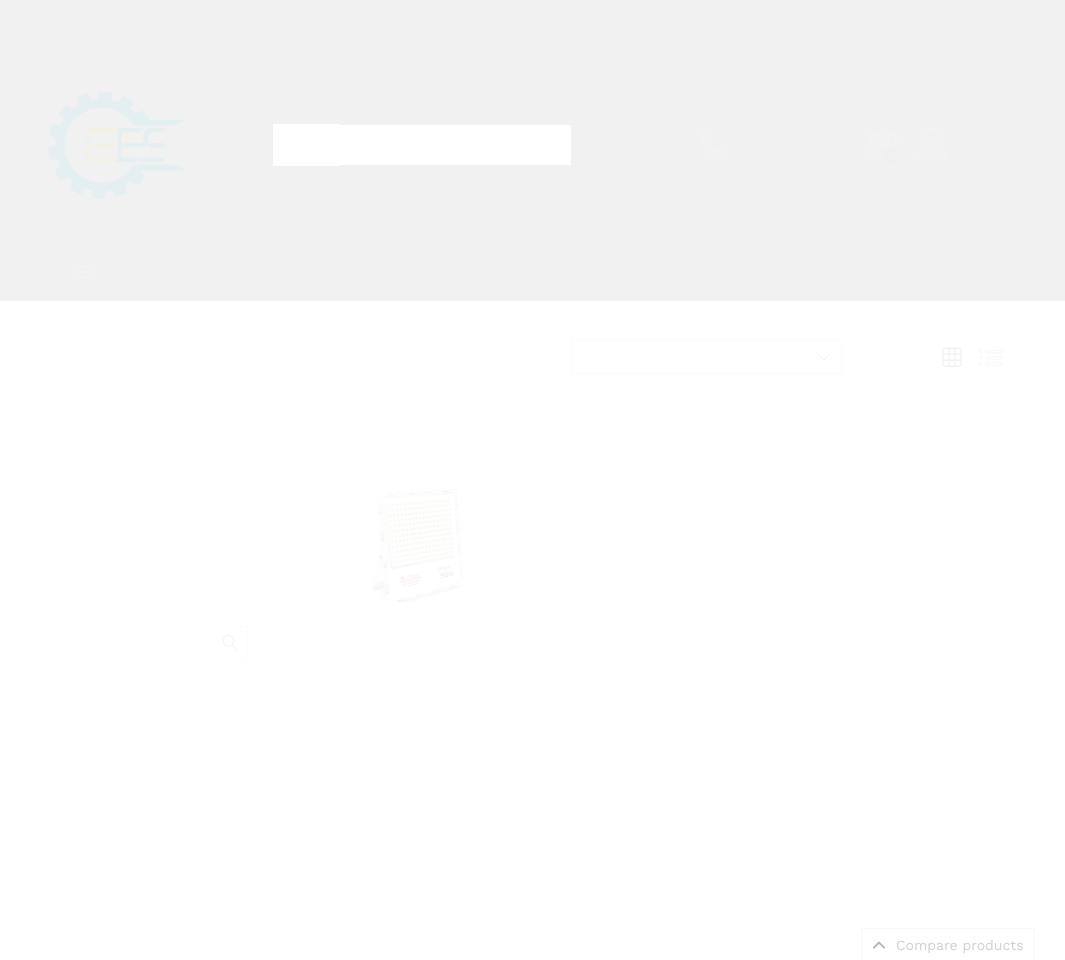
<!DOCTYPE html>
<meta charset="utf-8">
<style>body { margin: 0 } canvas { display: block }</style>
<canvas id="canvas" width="1065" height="960"></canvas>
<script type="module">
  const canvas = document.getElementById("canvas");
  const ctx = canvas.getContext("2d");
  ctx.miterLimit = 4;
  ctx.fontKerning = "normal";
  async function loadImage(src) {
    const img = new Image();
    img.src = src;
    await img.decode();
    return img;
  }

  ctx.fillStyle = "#ffffff";
  ctx.fillRect(0, 0, 1065, 960);
  ctx.fillStyle = "#f0f0f0";
  ctx.fillRect(0, 0, 1065, 50);
  ctx.fillStyle = "#f1f1f1";
  ctx.fillRect(0, 50, 1065, 251);
  ctx.drawImage(await loadImage("img1.png"), 48, 91, 137, 108);
  ctx.fillStyle = "#ffffff";
  ctx.fillRect(273, 124, 67, 42);
  ctx.fillRect(340, 125, 231, 40);
  ctx.drawImage(await loadImage("img2.png"), 701, 132, 26, 26);
  ctx.drawImage(await loadImage("img3.png"), 868, 128, 30, 30);
  ctx.fillStyle = "#f0f0f0";
  ctx.beginPath();
  ctx.arc(893, 156, 9, 0, Math.PI * 2);
  ctx.fill();
  ctx.drawImage(await loadImage("img4.png"), 918, 128, 29, 31);
  ctx.drawImage(await loadImage("img5.png"), 73, 265, 18, 13);
  ctx.strokeStyle = "#fbfbfb";
  ctx.strokeRect(572.5, 339.5, 269, 34);
  ctx.drawImage(await loadImage("img6.png"), 817, 353, 13, 8);
  ctx.drawImage(await loadImage("img7.png"), 942, 347, 20, 20);
  ctx.drawImage(await loadImage("img8.png"), 979, 350, 24, 16);
  ctx.drawImage(await loadImage("img9.png"), 371, 489, 93, 113);
  ctx.strokeStyle = "#fcfcfc";
  ctx.strokeRect(68.5, 626.5, 179, 33);
  ctx.drawImage(await loadImage("img10.png"), 223, 635, 14, 15);
  ctx.strokeRect(68.5, 686.5, 15, 15);
  ctx.fillStyle = "rgba(179, 179, 179, 0.1)";
  ctx.beginPath();
  ctx.moveTo(864, 928);
  ctx.lineTo(1032, 928);
  ctx.bezierCurveTo(1034, 928, 1035, 929, 1035, 931);
  ctx.lineTo(1035, 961);
  ctx.lineTo(861, 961);
  ctx.lineTo(861, 931);
  ctx.bezierCurveTo(861, 929, 862, 928, 864, 928);
  ctx.closePath();
  ctx.moveTo(864, 929);
  ctx.lineTo(1032, 929);
  ctx.bezierCurveTo(1033, 929, 1034, 930, 1034, 931);
  ctx.lineTo(1034, 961);
  ctx.lineTo(862, 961);
  ctx.lineTo(862, 931);
  ctx.bezierCurveTo(862, 930, 863, 929, 864, 929);
  ctx.closePath();
  ctx.fill("evenodd");
  ctx.drawImage(await loadImage("img11.png"), 872, 941, 14, 8);
  ctx.font = "14px Work Sans";
  ctx.fillStyle = "#d1d1d1";
  ctx.fillText("Compare products", 896, 950);
</script>
